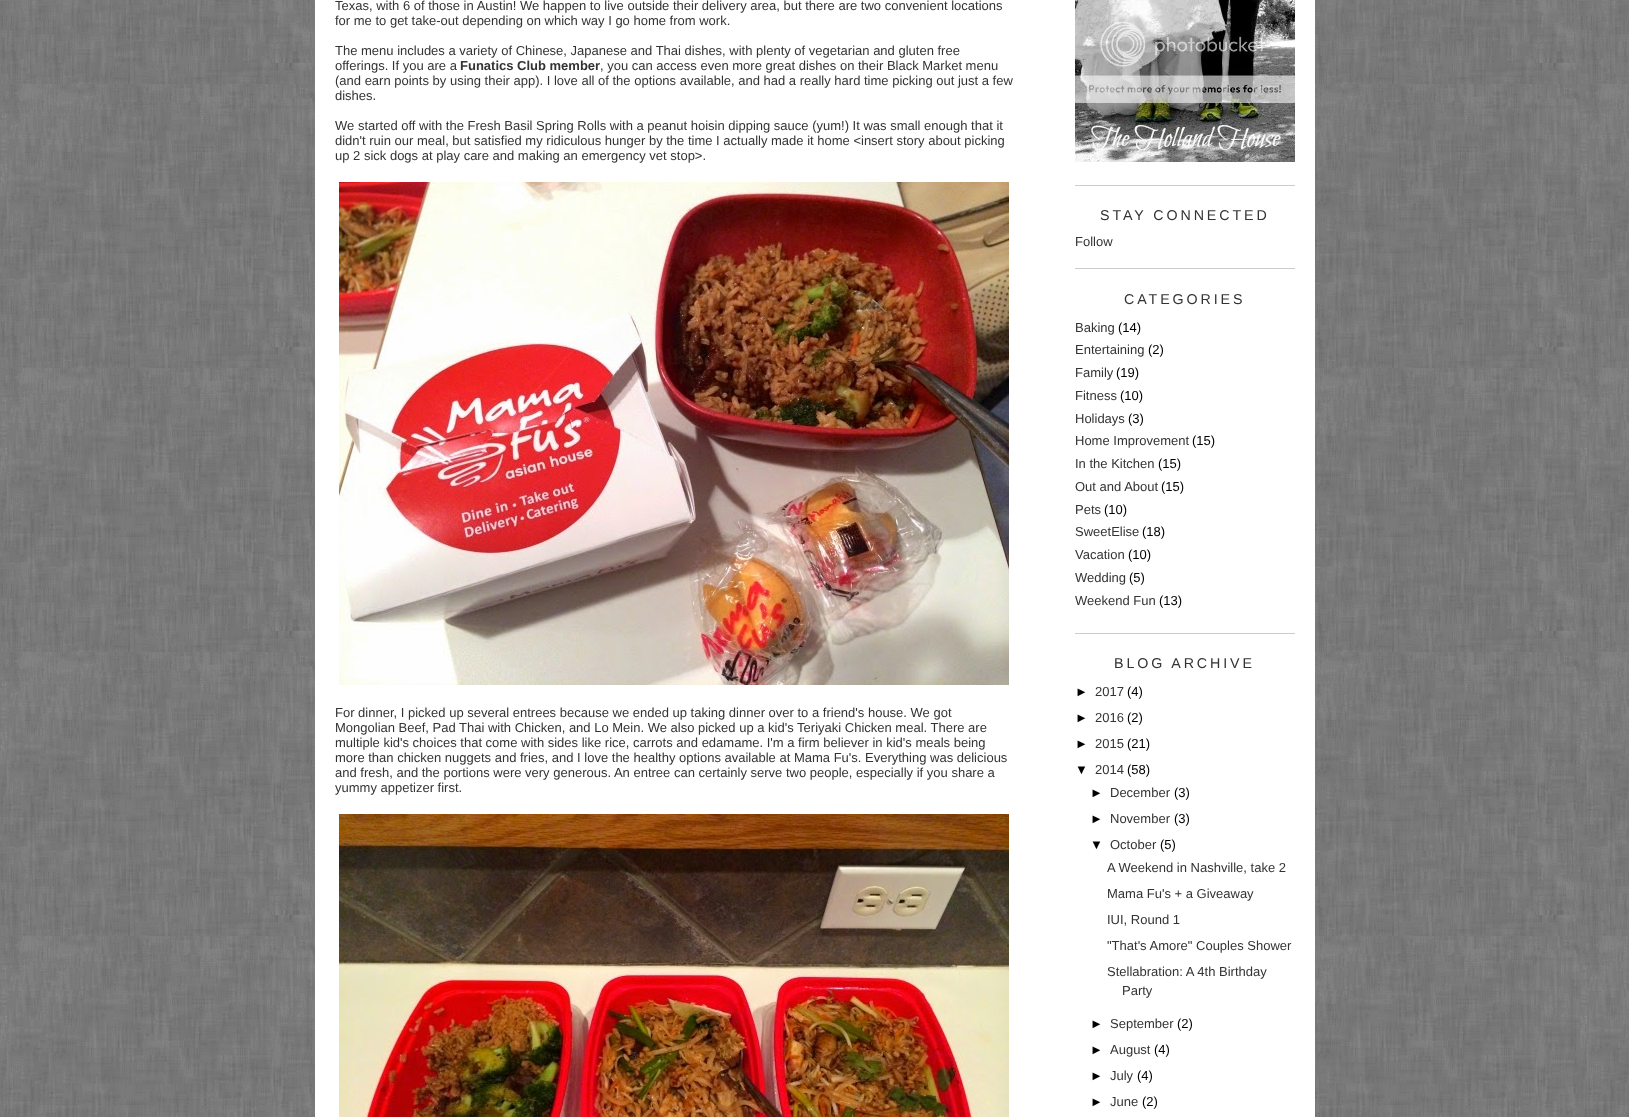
<!DOCTYPE html>
<meta charset="utf-8">
<style>body { margin: 0 } canvas { display: block }</style>
<canvas id="canvas" width="1629" height="1117"></canvas>
<script type="module">
  const canvas = document.getElementById("canvas");
  const ctx = canvas.getContext("2d");
  ctx.miterLimit = 4;
  ctx.fontKerning = "normal";
  async function loadImage(src) {
    const img = new Image();
    img.src = src;
    await img.decode();
    return img;
  }

  ctx.fillStyle = "#ffffff";
  ctx.fillRect(0, 0, 1629, 1117);
  ctx.drawImage(await loadImage("img1.png"), 0, 0, 1629, 1117);
  ctx.fillRect(315, 0, 1000, 1117);
  ctx.font = "13px Liberation Sans";
  ctx.fillStyle = "#333333";
  ctx.fillText("Texas, with 6 of those in Austin! We happen to live outside their delivery area, but there are two convenient locations", 335, 10);
  ctx.fillText("for me to get take-out depending on which way I go home from work.", 335, 25);
  ctx.fillText("The menu includes a variety of Chinese, Japanese and Thai dishes, with plenty of vegetarian and gluten free", 335, 55);
  ctx.fillText("offerings. If you are a", 335, 70);
  ctx.font = "bold 13px Liberation Sans";
  ctx.fillText("Funatics Club member", 460, 70);
  ctx.font = "13px Liberation Sans";
  ctx.fillText(", you can access even more great dishes on their Black Market menu", 600, 70);
  ctx.fillText("(and earn points by using their app). I love all of the options available, and had a really hard time picking out just a few", 335, 85);
  ctx.fillText("dishes.", 335, 100);
  ctx.fillText("We started off with the Fresh Basil Spring Rolls with a peanut hoisin dipping sauce (yum!) It was small enough that it", 335, 130);
  ctx.fillText("didn't ruin our meal, but satisfied my ridiculous hunger by the time I actually made it home <insert story about picking", 335, 145);
  ctx.fillText("up 2 sick dogs at play care and making an emergency vet stop>.", 335, 160);
  ctx.drawImage(await loadImage("img2.png"), 339, 182, 670, 503);
  ctx.fillText("For dinner, I picked up several entrees because we ended up taking dinner over to a friend's house. We got", 335, 717);
  ctx.fillText("Mongolian Beef, Pad Thai with Chicken, and Lo Mein. We also picked up a kid's Teriyaki Chicken meal. There are", 335, 732);
  ctx.fillText("multiple kid's choices that come with sides like rice, carrots and edamame. I'm a firm believer in kid's meals being", 335, 747);
  ctx.fillText("more than chicken nuggets and fries, and I love the healthy options available at Mama Fu's. Everything was delicious", 335, 762);
  ctx.fillText("and fresh, and the portions were very generous. An entree can certainly serve two people, especially if you share a", 335, 777);
  ctx.fillText("yummy appetizer first.", 335, 792);
  ctx.drawImage(await loadImage("img3.png"), 339, 814, 670, 303);
  ctx.fillStyle = "#cccccc";
  ctx.fillRect(1075, 185, 220, 1);
  ctx.drawImage(await loadImage("img4.png"), 1075, 0, 220, 162);
  ctx.fillRect(1075, 268, 220, 1);
  ctx.letterSpacing = "2.9px";
  ctx.font = "14.25px Liberation Sans";
  ctx.fillStyle = "#333333";
  ctx.fillText("STAY CONNECTED", 1100, 220);
  ctx.letterSpacing = "0px";
  ctx.font = "13px Liberation Sans";
  ctx.fillText("Follow", 1075, 246);
  ctx.fillStyle = "#cccccc";
  ctx.fillRect(1075, 633, 220, 1);
  ctx.letterSpacing = "2.9px";
  ctx.font = "14.25px Liberation Sans";
  ctx.fillStyle = "#333333";
  ctx.fillText("CATEGORIES", 1124, 304);
  ctx.letterSpacing = "0px";
  ctx.font = "13px Liberation Sans";
  ctx.fillText("Baking", 1075, 332);
  ctx.fillStyle = "#000000";
  ctx.fillText("(14)", 1118, 332);
  ctx.fillStyle = "#333333";
  ctx.fillText("Entertaining", 1075, 354);
  ctx.fillStyle = "#000000";
  ctx.fillText("(2)", 1148, 354);
  ctx.fillStyle = "#333333";
  ctx.fillText("Family", 1075, 377);
  ctx.fillStyle = "#000000";
  ctx.fillText("(19)", 1116, 377);
  ctx.fillStyle = "#333333";
  ctx.fillText("Fitness", 1075, 400);
  ctx.fillStyle = "#000000";
  ctx.fillText("(10)", 1120, 400);
  ctx.fillStyle = "#333333";
  ctx.fillText("Holidays", 1075, 423);
  ctx.fillStyle = "#000000";
  ctx.fillText("(3)", 1128, 423);
  ctx.fillStyle = "#333333";
  ctx.fillText("Home Improvement", 1075, 445);
  ctx.fillStyle = "#000000";
  ctx.fillText("(15)", 1192, 445);
  ctx.fillStyle = "#333333";
  ctx.fillText("In the Kitchen", 1075, 468);
  ctx.fillStyle = "#000000";
  ctx.fillText("(15)", 1158, 468);
  ctx.fillStyle = "#333333";
  ctx.fillText("Out and About", 1075, 491);
  ctx.fillStyle = "#000000";
  ctx.fillText("(15)", 1161, 491);
  ctx.fillStyle = "#333333";
  ctx.fillText("Pets", 1075, 514);
  ctx.fillStyle = "#000000";
  ctx.fillText("(10)", 1104, 514);
  ctx.fillStyle = "#333333";
  ctx.fillText("SweetElise", 1075, 536);
  ctx.fillStyle = "#000000";
  ctx.fillText("(18)", 1142, 536);
  ctx.fillStyle = "#333333";
  ctx.fillText("Vacation", 1075, 559);
  ctx.fillStyle = "#000000";
  ctx.fillText("(10)", 1128, 559);
  ctx.fillStyle = "#333333";
  ctx.fillText("Wedding", 1075, 582);
  ctx.fillStyle = "#000000";
  ctx.fillText("(5)", 1129, 582);
  ctx.fillStyle = "#333333";
  ctx.fillText("Weekend Fun", 1075, 605);
  ctx.fillStyle = "#000000";
  ctx.fillText("(13)", 1159, 605);
  ctx.letterSpacing = "2.9px";
  ctx.font = "14.25px Liberation Sans";
  ctx.fillStyle = "#333333";
  ctx.fillText("BLOG ARCHIVE", 1114, 668);
  ctx.letterSpacing = "0px";
  ctx.font = "13px Liberation Sans";
  ctx.fillStyle = "#000000";
  ctx.fillText("►", 1075, 696);
  ctx.fillStyle = "#333333";
  ctx.fillText("2017", 1095, 696);
  ctx.fillStyle = "#000000";
  ctx.fillText("(4)", 1127, 696);
  ctx.fillText("►", 1075, 722);
  ctx.fillStyle = "#333333";
  ctx.fillText("2016", 1095, 722);
  ctx.fillStyle = "#000000";
  ctx.fillText("(2)", 1127, 722);
  ctx.fillText("►", 1075, 748);
  ctx.fillStyle = "#333333";
  ctx.fillText("2015", 1095, 748);
  ctx.fillStyle = "#000000";
  ctx.fillText("(21)", 1127, 748);
  ctx.fillText("▼", 1075, 774);
  ctx.fillStyle = "#333333";
  ctx.fillText("2014", 1095, 774);
  ctx.fillStyle = "#000000";
  ctx.fillText("(58)", 1127, 774);
  ctx.fillText("►", 1090, 797);
  ctx.fillStyle = "#333333";
  ctx.fillText("December", 1110, 797);
  ctx.fillStyle = "#000000";
  ctx.fillText("(3)", 1174, 797);
  ctx.fillText("►", 1090, 823);
  ctx.fillStyle = "#333333";
  ctx.fillText("November", 1110, 823);
  ctx.fillStyle = "#000000";
  ctx.fillText("(3)", 1174, 823);
  ctx.fillText("▼", 1090, 849);
  ctx.fillStyle = "#333333";
  ctx.fillText("October", 1110, 849);
  ctx.fillStyle = "#000000";
  ctx.fillText("(5)", 1160, 849);
  ctx.fillStyle = "#333333";
  ctx.fillText("A Weekend in Nashville, take 2", 1107, 872);
  ctx.fillText("Mama Fu's + a Giveaway", 1107, 898);
  ctx.fillText("IUI, Round 1", 1107, 924);
  ctx.fillText("\"That's Amore\" Couples Shower", 1107, 950);
  ctx.fillText("Stellabration: A 4th Birthday", 1107, 976);
  ctx.fillText("Party", 1122, 995);
  ctx.fillStyle = "#000000";
  ctx.fillText("►", 1090, 1028);
  ctx.fillStyle = "#333333";
  ctx.fillText("September", 1110, 1028);
  ctx.fillStyle = "#000000";
  ctx.fillText("(2)", 1177, 1028);
  ctx.fillText("►", 1090, 1054);
  ctx.fillStyle = "#333333";
  ctx.fillText("August", 1110, 1054);
  ctx.fillStyle = "#000000";
  ctx.fillText("(4)", 1154, 1054);
  ctx.fillText("►", 1090, 1080);
  ctx.fillStyle = "#333333";
  ctx.fillText("July", 1110, 1080);
  ctx.fillStyle = "#000000";
  ctx.fillText("(4)", 1137, 1080);
  ctx.fillText("►", 1090, 1106);
  ctx.fillStyle = "#333333";
  ctx.fillText("June", 1110, 1106);
  ctx.fillStyle = "#000000";
  ctx.fillText("(2)", 1142, 1106);
</script>
